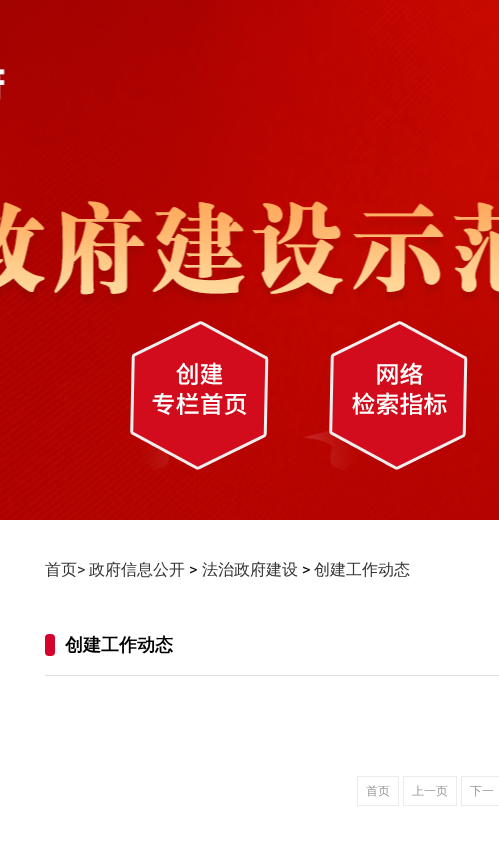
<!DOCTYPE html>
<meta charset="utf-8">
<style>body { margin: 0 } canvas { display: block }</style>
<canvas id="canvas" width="499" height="850"></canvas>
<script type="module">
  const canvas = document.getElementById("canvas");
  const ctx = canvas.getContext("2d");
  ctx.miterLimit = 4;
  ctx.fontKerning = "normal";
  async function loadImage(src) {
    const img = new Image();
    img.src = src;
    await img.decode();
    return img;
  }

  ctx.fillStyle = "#ffffff";
  ctx.fillRect(0, 0, 499, 850);
  ctx.drawImage(await loadImage("img1.png"), 0, 0, 499, 520);
  ctx.drawImage(await loadImage("img2.png"), 130, 321, 139, 149);
  ctx.drawImage(await loadImage("img3.png"), 329, 321, 139, 149);
  ctx.font = "500 16px WenQuanYi Zen Hei";
  ctx.fillStyle = "#333333";
  ctx.fillText("首页", 45, 575);
  ctx.font = "16px Roboto";
  ctx.fillText(">", 77, 575);
  ctx.font = "500 16px WenQuanYi Zen Hei";
  ctx.fillText("政府信息公开", 89, 575);
  ctx.font = "16px Roboto";
  ctx.fillStyle = "#000000";
  ctx.fillText(">", 189, 575);
  ctx.font = "500 16px WenQuanYi Zen Hei";
  ctx.fillStyle = "#333333";
  ctx.fillText("法治政府建设", 202, 575);
  ctx.font = "16px Roboto";
  ctx.fillStyle = "#000000";
  ctx.fillText(">", 302, 575);
  ctx.font = "500 16px WenQuanYi Zen Hei";
  ctx.fillStyle = "#333333";
  ctx.fillText("创建工作动态", 314, 575);
  ctx.fillStyle = "#dddddd";
  ctx.fillRect(45, 675, 454, 1);
  ctx.fillStyle = "#d6012d";
  ctx.beginPath();
  ctx.roundRect(45, 634, 10, 22, 4);
  ctx.fill();
  ctx.font = "bold 18px WenQuanYi Zen Hei";
  ctx.fillStyle = "#000000";
  ctx.fillText("创建工作动态", 65, 651);
  ctx.strokeStyle = "#ecebeb";
  ctx.strokeRect(357.5, 776.5, 41, 29);
  ctx.font = "500 12px WenQuanYi Zen Hei";
  ctx.fillStyle = "#999999";
  ctx.fillText("首页", 366, 795);
  ctx.strokeRect(403.5, 776.5, 53, 29);
  ctx.fillText("上一页", 412, 795);
  ctx.strokeRect(461.5, 776.5, 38, 29);
  ctx.fillText("下一", 470, 795);
</script>
